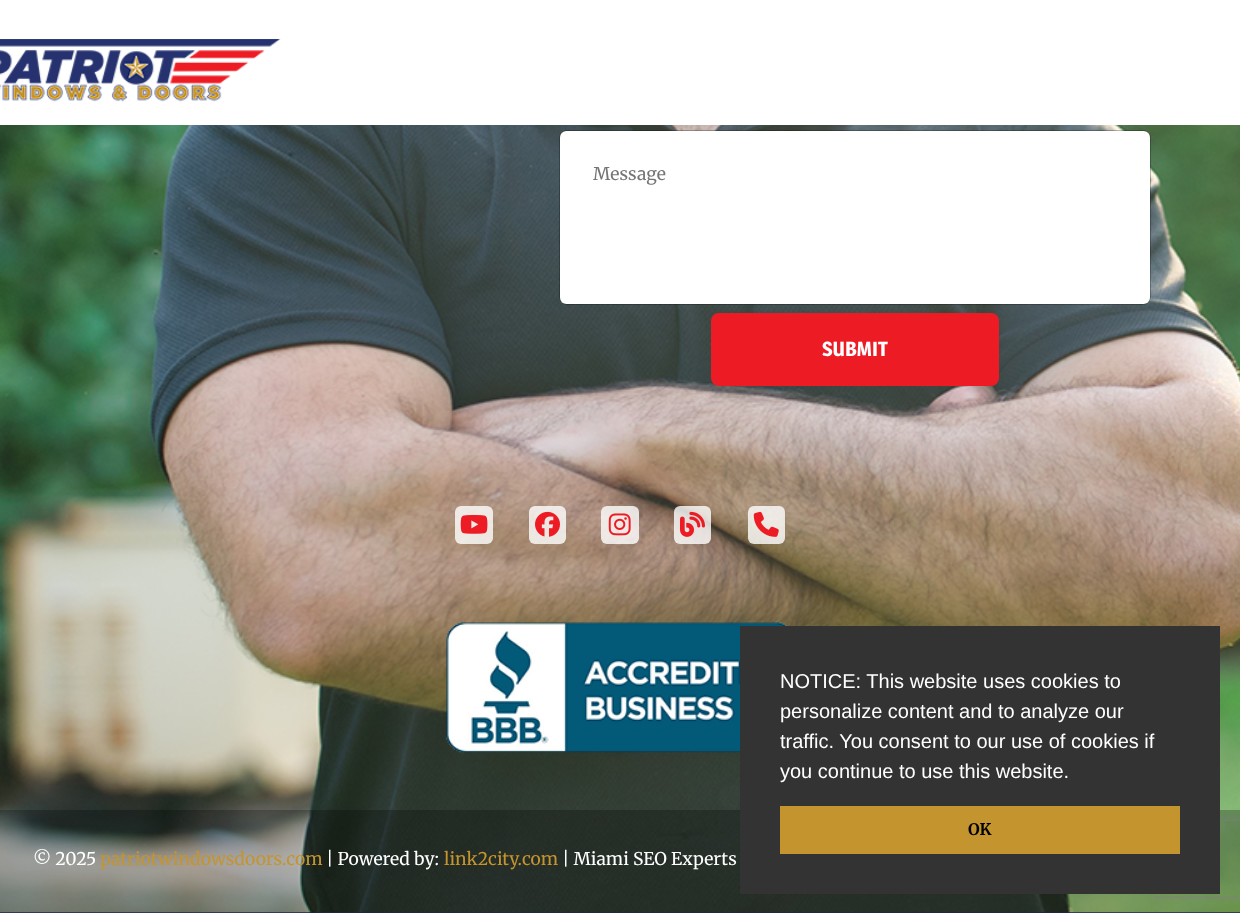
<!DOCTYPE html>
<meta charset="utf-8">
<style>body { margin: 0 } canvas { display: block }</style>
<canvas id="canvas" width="1240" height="913"></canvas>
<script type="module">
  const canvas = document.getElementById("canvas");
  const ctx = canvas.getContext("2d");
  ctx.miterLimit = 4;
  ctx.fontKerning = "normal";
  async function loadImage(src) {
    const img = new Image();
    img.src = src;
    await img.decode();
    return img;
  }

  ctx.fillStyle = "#25326f";
  ctx.fillRect(0, 0, 1240, 913);
  ctx.fillStyle = "#ffffff";
  ctx.fillRect(0, 0, 1240, 125);
  ctx.drawImage(await loadImage("img1.png"), 0, 39, 281, 63);
  ctx.drawImage(await loadImage("img2.png"), 0, 125, 1240, 788);
  ctx.beginPath();
  ctx.roundRect(560, 131, 590, 173, 6);
  ctx.fill();
  ctx.beginPath();
  ctx.roundRect(559.5, 130.5, 591, 174, 7.5);
  ctx.strokeStyle = "rgba(0, 0, 0, 0.25)";
  ctx.stroke();
  ctx.font = "17.5px Merriweather";
  ctx.fillStyle = "#757575";
  ctx.fillText("Message", 593, 180);
  ctx.fillStyle = "#ed1c24";
  ctx.beginPath();
  ctx.roundRect(711, 313, 288, 73, 8);
  ctx.fill();
  ctx.font = "bold 20px Magra";
  ctx.fillStyle = "#ffffff";
  ctx.fillText("SUBMIT", 822, 356);
  ctx.fillStyle = "rgba(255, 255, 255, 0.8)";
  ctx.beginPath();
  ctx.roundRect(455, 506, 38, 38, 6);
  ctx.fill();
  ctx.drawImage(await loadImage("img3.png"), 460, 515, 28, 19);
  ctx.beginPath();
  ctx.roundRect(529, 506, 37, 38, 6);
  ctx.fill();
  ctx.drawImage(await loadImage("img4.png"), 535, 511, 25, 26);
  ctx.beginPath();
  ctx.roundRect(601, 506, 38, 38, 6);
  ctx.fill();
  ctx.drawImage(await loadImage("img5.png"), 608, 513, 23, 23);
  ctx.beginPath();
  ctx.roundRect(674, 506, 37, 38, 6);
  ctx.fill();
  ctx.drawImage(await loadImage("img6.png"), 680, 511, 25, 26);
  ctx.beginPath();
  ctx.roundRect(748, 506, 37, 38, 6);
  ctx.fill();
  ctx.drawImage(await loadImage("img7.png"), 753, 511, 26, 26);
  ctx.drawImage(await loadImage("img8.png"), 446, 622, 341, 132);
  ctx.fillStyle = "rgba(0, 0, 0, 0.25)";
  ctx.fillRect(0, 810, 1240, 103);
  ctx.font = "17.5px Merriweather";
  ctx.fillStyle = "#ffffff";
  ctx.fillText("© 2025", 33, 865);
  ctx.fillStyle = "#c4942f";
  ctx.fillText("patriotwindowsdoors.com", 100, 865);
  ctx.fillStyle = "#ffffff";
  ctx.fillText("| Powered by:", 326, 865);
  ctx.fillStyle = "#c4942f";
  ctx.fillText("link2city.com", 444, 865);
  ctx.fillStyle = "#ffffff";
  ctx.fillText("| Miami SEO Experts", 562, 865);
  ctx.save();
  ctx.beginPath();
  ctx.moveTo(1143, 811);
  ctx.lineTo(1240, 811);
  ctx.lineTo(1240, 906);
  ctx.lineTo(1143, 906);
  ctx.closePath();
  ctx.moveTo(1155.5, 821);
  ctx.lineTo(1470.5, 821);
  ctx.bezierCurveTo(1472, 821, 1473, 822, 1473, 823.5);
  ctx.lineTo(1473, 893.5);
  ctx.bezierCurveTo(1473, 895, 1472, 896, 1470.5, 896);
  ctx.lineTo(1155.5, 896);
  ctx.bezierCurveTo(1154, 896, 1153, 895, 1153, 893.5);
  ctx.lineTo(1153, 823.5);
  ctx.bezierCurveTo(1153, 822, 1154, 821, 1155.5, 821);
  ctx.closePath();
  ctx.clip("evenodd");
  ctx.fillStyle = "#808080";
  ctx.filter = "blur(3px)";
  ctx.beginPath();
  ctx.roundRect(1153, 821, 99, 75, 2.5);
  ctx.fill();
  ctx.filter = "none";
  ctx.restore();
  ctx.fillStyle = "#333333";
  ctx.fillRect(740, 626, 480, 268);
  ctx.font = "20px Liberation Sans";
  ctx.fillStyle = "#ffffff";
  ctx.fillText("NOTICE: This website uses cookies to", 780, 688);
  ctx.fillText("personalize content and to analyze our", 780, 718);
  ctx.fillText("traffic. You consent to our use of cookies if", 780, 748);
  ctx.fillText("you continue to use this website.", 780, 778);
  ctx.fillStyle = "#c4942f";
  ctx.fillRect(780, 806, 400, 48);
  ctx.font = "bold 16px Merriweather";
  ctx.fillStyle = "#000000";
  ctx.fillText("OK", 968, 835);
</script>
